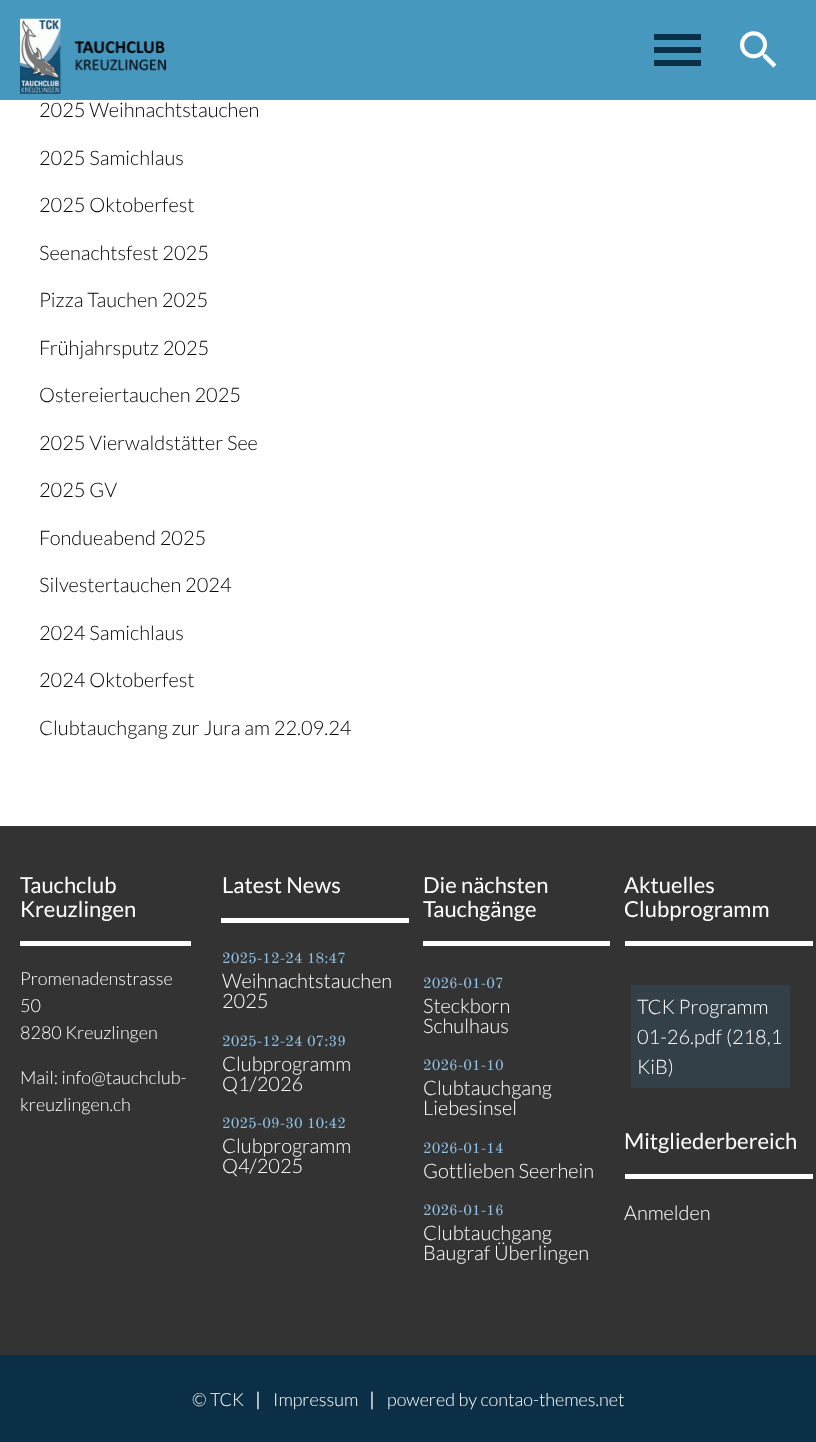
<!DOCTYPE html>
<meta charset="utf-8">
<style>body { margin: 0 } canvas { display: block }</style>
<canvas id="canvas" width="816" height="1442"></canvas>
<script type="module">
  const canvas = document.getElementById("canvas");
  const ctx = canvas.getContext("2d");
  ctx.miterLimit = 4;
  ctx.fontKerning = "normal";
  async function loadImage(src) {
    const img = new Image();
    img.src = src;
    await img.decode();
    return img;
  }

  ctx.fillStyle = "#ffffff";
  ctx.fillRect(0, 0, 816, 1442);
  ctx.fillStyle = "#4698bf";
  ctx.fillRect(0, 0, 816, 100);
  ctx.drawImage(await loadImage("img1.png"), 20, 18, 147, 76);
  ctx.fillStyle = "#0b2f47";
  ctx.beginPath();
  ctx.moveTo(654, 34);
  ctx.lineTo(701, 34);
  ctx.lineTo(701, 40);
  ctx.lineTo(654, 40);
  ctx.closePath();
  ctx.moveTo(654, 53);
  ctx.lineTo(654, 47);
  ctx.lineTo(701, 47);
  ctx.lineTo(701, 53);
  ctx.closePath();
  ctx.moveTo(654, 66);
  ctx.lineTo(654, 60);
  ctx.lineTo(701, 60);
  ctx.lineTo(701, 66);
  ctx.closePath();
  ctx.fill();
  ctx.drawImage(await loadImage("img2.png"), 740, 31, 37, 37);
  ctx.font = "300 20px Lato";
  ctx.fillStyle = "#000000";
  ctx.fillText("2025 Weihnachtstauchen", 39, 117);
  ctx.fillText("2025 Samichlaus", 39, 165);
  ctx.fillText("2025 Oktoberfest", 39, 212);
  ctx.fillText("Seenachtsfest 2025", 39, 260);
  ctx.fillText("Pizza Tauchen 2025", 39, 307);
  ctx.fillText("Frühjahrsputz 2025", 39, 355);
  ctx.fillText("Ostereiertauchen 2025", 39, 402);
  ctx.fillText("2025 Vierwaldstätter See", 39, 450);
  ctx.fillText("2025 GV", 39, 497);
  ctx.fillText("Fondueabend 2025", 39, 545);
  ctx.fillText("Silvestertauchen 2024", 39, 592);
  ctx.fillText("2024 Samichlaus", 39, 640);
  ctx.fillText("2024 Oktoberfest", 39, 687);
  ctx.fillText("Clubtauchgang zur Jura am 22.09.24", 39, 735);
  ctx.fillStyle = "#333333";
  ctx.fillRect(0, 826, 816, 529);
  ctx.font = "22px Lato";
  ctx.fillStyle = "#ffffff";
  ctx.fillText("Tauchclub", 20, 893);
  ctx.fillText("Kreuzlingen", 20, 917);
  ctx.fillRect(20, 941, 171, 5);
  ctx.font = "300 18px Lato";
  ctx.fillText("Promenadenstrasse", 20, 985);
  ctx.fillText("50", 20, 1012);
  ctx.fillText("8280 Kreuzlingen", 20, 1039);
  ctx.fillText("Mail: info@tauchclub-", 20, 1084);
  ctx.fillText("kreuzlingen.ch", 20, 1111);
  ctx.font = "22px Lato";
  ctx.fillText("Latest News", 222, 893);
  ctx.fillRect(221, 918, 188, 5);
  ctx.font = "15px Old Standard TT";
  ctx.fillStyle = "#8ec1e3";
  ctx.fillText("2025-12-24 18:47", 222, 963);
  ctx.font = "300 20px Lato";
  ctx.fillStyle = "#ffffff";
  ctx.fillText("Weihnachtstauchen", 222, 988);
  ctx.fillText("2025", 222, 1008);
  ctx.font = "15px Old Standard TT";
  ctx.fillStyle = "#8ec1e3";
  ctx.fillText("2025-12-24 07:39", 222, 1046);
  ctx.font = "300 20px Lato";
  ctx.fillStyle = "#ffffff";
  ctx.fillText("Clubprogramm", 222, 1071);
  ctx.fillText("Q1/2026", 222, 1091);
  ctx.font = "15px Old Standard TT";
  ctx.fillStyle = "#8ec1e3";
  ctx.fillText("2025-09-30 10:42", 222, 1128);
  ctx.font = "300 20px Lato";
  ctx.fillStyle = "#ffffff";
  ctx.fillText("Clubprogramm", 222, 1153);
  ctx.fillText("Q4/2025", 222, 1173);
  ctx.font = "22px Lato";
  ctx.fillText("Die nächsten", 423, 893);
  ctx.fillText("Tauchgänge", 423, 917);
  ctx.fillRect(423, 941, 187, 5);
  ctx.font = "15px Old Standard TT";
  ctx.fillStyle = "#8ec1e3";
  ctx.fillText("2026-01-07", 423, 988);
  ctx.font = "300 20px Lato";
  ctx.fillStyle = "#ffffff";
  ctx.fillText("Steckborn", 423, 1013);
  ctx.fillText("Schulhaus", 423, 1033);
  ctx.font = "15px Old Standard TT";
  ctx.fillStyle = "#8ec1e3";
  ctx.fillText("2026-01-10", 423, 1070);
  ctx.font = "300 20px Lato";
  ctx.fillStyle = "#ffffff";
  ctx.fillText("Clubtauchgang", 423, 1095);
  ctx.fillText("Liebesinsel", 423, 1115);
  ctx.font = "15px Old Standard TT";
  ctx.fillStyle = "#8ec1e3";
  ctx.fillText("2026-01-14", 423, 1153);
  ctx.font = "300 20px Lato";
  ctx.fillStyle = "#ffffff";
  ctx.fillText("Gottlieben Seerhein", 423, 1178);
  ctx.font = "15px Old Standard TT";
  ctx.fillStyle = "#8ec1e3";
  ctx.fillText("2026-01-16", 423, 1215);
  ctx.font = "300 20px Lato";
  ctx.fillStyle = "#ffffff";
  ctx.fillText("Clubtauchgang", 423, 1240);
  ctx.fillText("Baugraf Überlingen", 423, 1260);
  ctx.font = "22px Lato";
  ctx.fillText("Aktuelles", 624, 893);
  ctx.fillText("Clubprogramm", 624, 917);
  ctx.fillRect(625, 941, 188, 5);
  ctx.fillStyle = "#334047";
  ctx.fillRect(631, 985, 159, 103);
  ctx.font = "300 20px Lato";
  ctx.fillStyle = "#ffffff";
  ctx.fillText("TCK Programm", 637, 1014);
  ctx.fillText("01-26.pdf (218,1", 637, 1044);
  ctx.fillText("KiB)", 637, 1074);
  ctx.font = "22px Lato";
  ctx.fillText("Mitgliederbereich", 624, 1149);
  ctx.fillRect(625, 1174, 188, 5);
  ctx.font = "300 20px Lato";
  ctx.fillText("Anmelden", 624, 1220);
  ctx.fillStyle = "#0b2f47";
  ctx.fillRect(0, 1355, 816, 87);
  ctx.font = "300 18px Lato";
  ctx.fillStyle = "#ffffff";
  ctx.fillText("© TCK", 192, 1406);
  ctx.font = "bold 18px Lato";
  ctx.fillText("|", 255, 1406);
  ctx.font = "300 18px Lato";
  ctx.fillText("Impressum", 273, 1406);
  ctx.font = "bold 18px Lato";
  ctx.fillText("|", 369, 1406);
  ctx.font = "300 18px Lato";
  ctx.fillText("powered by contao-themes.net", 387, 1406);
</script>
